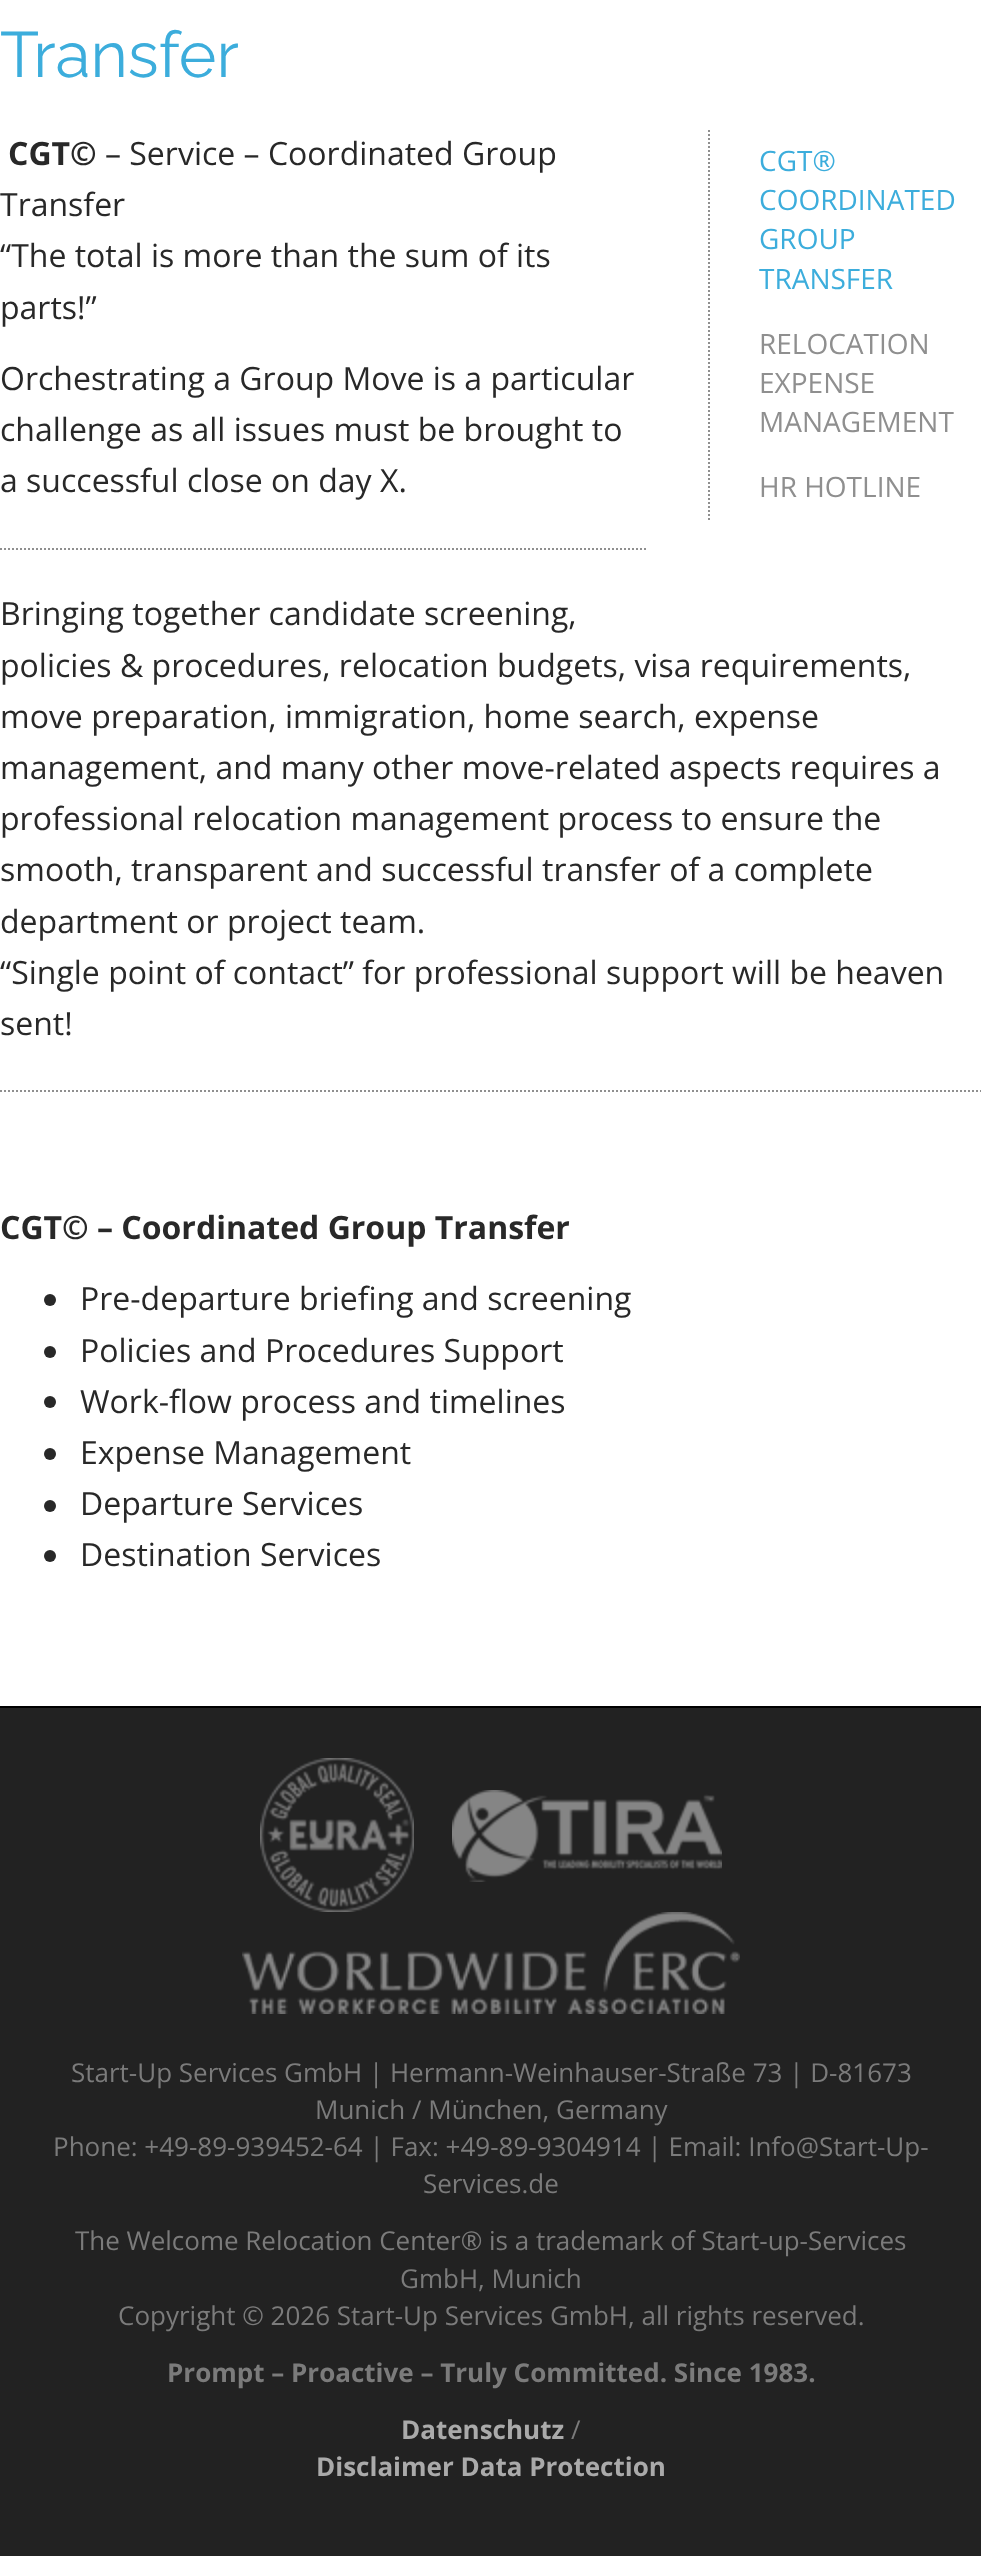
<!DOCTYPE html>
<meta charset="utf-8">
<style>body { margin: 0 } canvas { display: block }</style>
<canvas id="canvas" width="981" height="2556"></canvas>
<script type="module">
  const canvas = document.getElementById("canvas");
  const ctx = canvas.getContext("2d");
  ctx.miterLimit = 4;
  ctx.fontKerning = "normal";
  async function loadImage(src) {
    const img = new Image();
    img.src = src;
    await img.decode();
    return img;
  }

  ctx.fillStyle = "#ffffff";
  ctx.fillRect(0, 0, 981, 2556);
  ctx.font = "100 64px Raleway";
  ctx.fillStyle = "#3caddc";
  ctx.fillText("Transfer", 0, 77);
  ctx.font = "bold 32px Open Sans";
  ctx.fillStyle = "#282828";
  ctx.fillText("CGT©", 8, 165);
  ctx.font = "32px Open Sans";
  ctx.fillText("– Service – Coordinated Group", 105, 165);
  ctx.fillText("Transfer", 0, 216);
  ctx.fillText("“The total is more than the sum of its", 0, 267);
  ctx.fillText("parts!”", 0, 319);
  ctx.beginPath();
  ctx.moveTo(709, 130);
  ctx.lineTo(709, 520);
  ctx.strokeStyle = "#8f8f8f";
  ctx.lineWidth = 2;
  ctx.setLineDash([2, 2]);
  ctx.stroke();
  ctx.font = "28px Open Sans";
  ctx.fillStyle = "#3caddc";
  ctx.fillText("CGT®", 759, 171);
  ctx.fillText("COORDINATED", 759, 210);
  ctx.fillText("GROUP", 759, 249);
  ctx.fillText("TRANSFER", 759, 289);
  ctx.fillStyle = "#8f8f8f";
  ctx.fillText("RELOCATION", 759, 354);
  ctx.fillText("EXPENSE", 759, 393);
  ctx.fillText("MANAGEMENT", 759, 432);
  ctx.fillText("HR HOTLINE", 759, 497);
  ctx.font = "32px Open Sans";
  ctx.fillStyle = "#282828";
  ctx.fillText("Orchestrating a Group Move is a particular", 0, 390);
  ctx.fillText("challenge as all issues must be brought to", 0, 441);
  ctx.fillText("a successful close on day X.", 0, 492);
  ctx.beginPath();
  ctx.moveTo(0, 549);
  ctx.lineTo(648, 549);
  ctx.stroke();
  ctx.fillText("Bringing together candidate screening,", 0, 625);
  ctx.fillText("policies & procedures, relocation budgets, visa requirements,", 0, 677);
  ctx.fillText("move preparation, immigration, home search, expense", 0, 728);
  ctx.fillText("management, and many other move-related aspects requires a", 0, 779);
  ctx.fillText("professional relocation management process to ensure the", 0, 830);
  ctx.fillText("smooth, transparent and successful transfer of a complete", 0, 881);
  ctx.fillText("department or project team.", 0, 933);
  ctx.fillText("“Single point of contact” for professional support will be heaven", 0, 984);
  ctx.fillText("sent!", 0, 1035);
  ctx.beginPath();
  ctx.moveTo(0, 1091);
  ctx.lineTo(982, 1091);
  ctx.stroke();
  ctx.font = "bold 32px Open Sans";
  ctx.fillText("CGT© – Coordinated Group Transfer", 0, 1239);
  ctx.beginPath();
  ctx.arc(50, 1300, 6, 0, Math.PI * 2);
  ctx.fill();
  ctx.font = "32px Open Sans";
  ctx.fillText("Pre-departure briefing and screening", 80, 1310);
  ctx.beginPath();
  ctx.arc(50, 1352, 6, 0, Math.PI * 2);
  ctx.fill();
  ctx.fillText("Policies and Procedures Support", 80, 1362);
  ctx.beginPath();
  ctx.arc(50, 1402, 6, 0, Math.PI * 2);
  ctx.fill();
  ctx.fillText("Work-flow process and timelines", 80, 1413);
  ctx.beginPath();
  ctx.arc(50, 1454, 6, 0, Math.PI * 2);
  ctx.fill();
  ctx.fillText("Expense Management", 80, 1464);
  ctx.beginPath();
  ctx.arc(50, 1506, 6, 0, Math.PI * 2);
  ctx.fill();
  ctx.fillText("Departure Services", 80, 1515);
  ctx.beginPath();
  ctx.arc(50, 1556, 6, 0, Math.PI * 2);
  ctx.fill();
  ctx.fillText("Destination Services", 80, 1566);
  ctx.fillStyle = "#222222";
  ctx.fillRect(0, 1708, 981, 848);
  ctx.fillStyle = "#000000";
  ctx.fillRect(0, 1706, 981, 2);
  ctx.drawImage(await loadImage("img1.png"), 260, 1758, 154, 154);
  ctx.drawImage(await loadImage("img2.png"), 452, 1790, 270, 92);
  ctx.drawImage(await loadImage("img3.png"), 242, 1912, 498, 102);
  ctx.font = "26px Open Sans";
  ctx.fillStyle = "#7b7b7b";
  ctx.fillText("Start-Up Services GmbH | Hermann-Weinhauser-Straße 73 | D-81673", 71, 2082);
  ctx.fillText("Munich / München, Germany", 315, 2119);
  ctx.fillText("Phone: +49-89-939452-64 | Fax: +49-89-9304914 | Email: Info@Start-Up-", 53, 2156);
  ctx.fillText("Services.de", 423, 2193);
  ctx.fillText("The Welcome Relocation Center® is a trademark of Start-up-Services", 75, 2250);
  ctx.fillText("GmbH, Munich", 400, 2288);
  ctx.fillText("Copyright © 2026 Start-Up Services GmbH, all rights reserved.", 118, 2325);
  ctx.font = "bold 26px Open Sans";
  ctx.fillText("Prompt – Proactive – Truly Committed. Since 1983.", 167, 2382);
  ctx.fillStyle = "#aaaaaa";
  ctx.fillText("Datenschutz", 401, 2439);
  ctx.font = "26px Open Sans";
  ctx.fillStyle = "#7b7b7b";
  ctx.fillText("/", 571, 2439);
  ctx.font = "bold 26px Open Sans";
  ctx.fillStyle = "#aaaaaa";
  ctx.fillText("Disclaimer Data Protection", 316, 2476);
</script>
